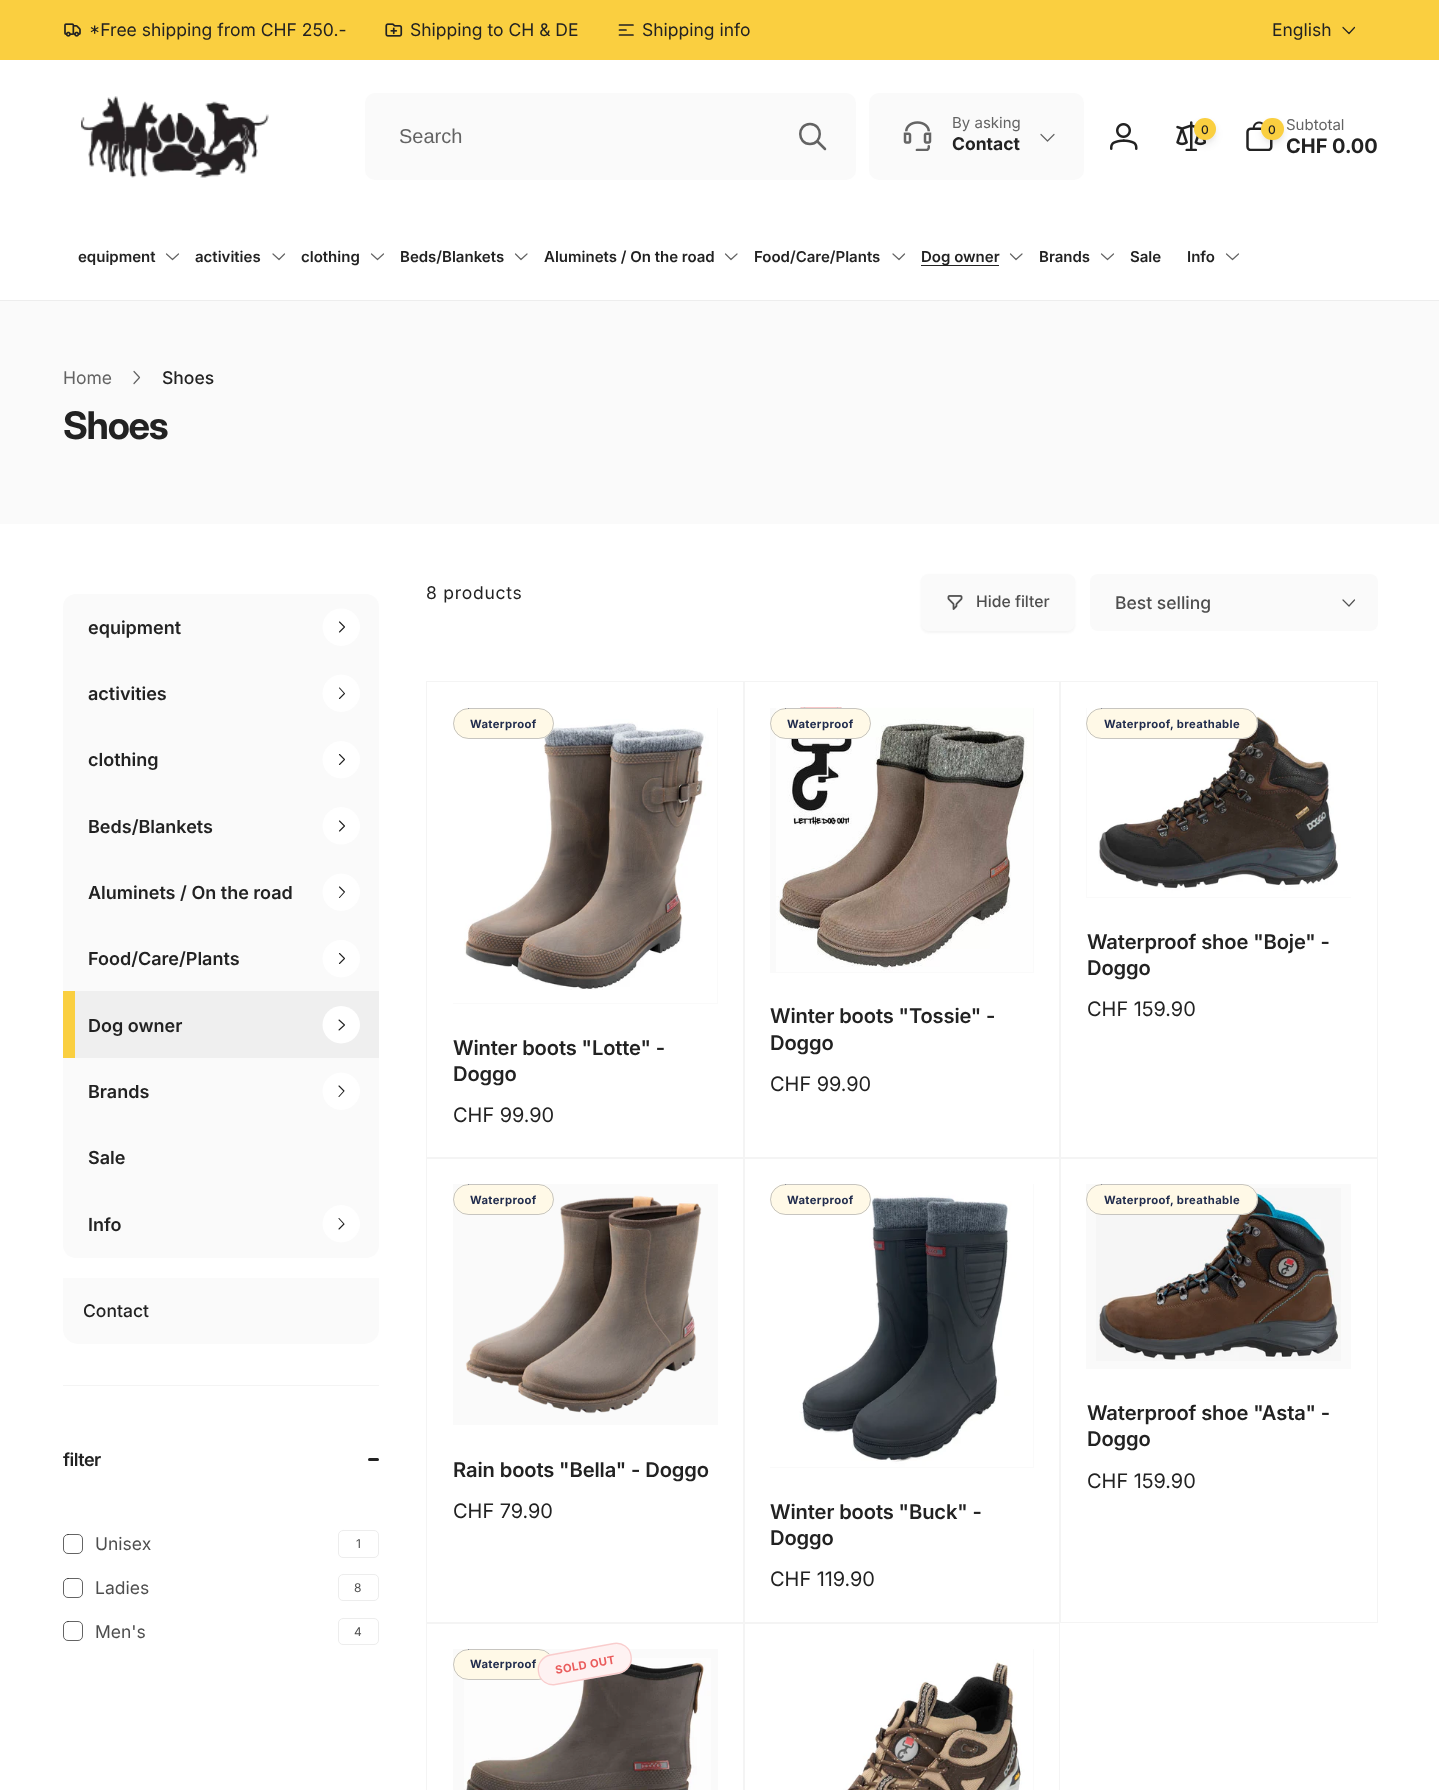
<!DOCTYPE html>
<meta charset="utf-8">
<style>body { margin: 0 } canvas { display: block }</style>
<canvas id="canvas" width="1439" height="1790"></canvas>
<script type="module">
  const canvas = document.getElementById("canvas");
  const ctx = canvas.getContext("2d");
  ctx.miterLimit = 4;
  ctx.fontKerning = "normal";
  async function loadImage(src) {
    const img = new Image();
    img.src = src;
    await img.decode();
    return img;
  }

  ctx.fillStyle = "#ffffff";
  ctx.fillRect(0, 0, 1439, 1790);
  ctx.fillStyle = "#facf40";
  ctx.fillRect(0, 0, 1439, 60);
  ctx.drawImage(await loadImage("img1.png"), 64, 23, 17, 14);
  ctx.font = "17.5px Inter";
  ctx.fillStyle = "#222222";
  ctx.fillText("*Free shipping from CHF 250.-", 89, 36);
  ctx.drawImage(await loadImage("img2.png"), 385, 23, 18, 14);
  ctx.fillText("Shipping to CH & DE", 410, 36);
  ctx.beginPath();
  ctx.moveTo(619.5, 25);
  ctx.lineTo(633, 25);
  ctx.moveTo(619.5, 30);
  ctx.lineTo(626, 30);
  ctx.moveTo(619.5, 35);
  ctx.lineTo(633, 35);
  ctx.strokeStyle = "#222222";
  ctx.lineWidth = 1.7;
  ctx.lineCap = "round";
  ctx.lineJoin = "round";
  ctx.stroke();
  ctx.fillText("Shipping info", 642, 36);
  ctx.fillText("English", 1272, 36);
  ctx.beginPath();
  ctx.moveTo(1354.5, 27.5);
  ctx.lineTo(1349, 33.5);
  ctx.lineTo(1343, 27.5);
  ctx.lineWidth = 1.2;
  ctx.stroke();
  ctx.fillStyle = "#ededed";
  ctx.fillRect(0, 300, 1439, 1);
  ctx.drawImage(await loadImage("img3.png"), 81, 96, 188, 82);
  ctx.fillStyle = "#fafafa";
  ctx.beginPath();
  ctx.roundRect(365, 93, 491, 87, 10);
  ctx.fill();
  ctx.font = "20px Liberation Sans";
  ctx.fillStyle = "#636363";
  ctx.fillText("Search", 399, 143);
  ctx.beginPath();
  ctx.moveTo(825, 149);
  ctx.lineTo(817, 141);
  ctx.moveTo(810, 144);
  ctx.bezierCurveTo(823, 144, 823, 124, 810, 124);
  ctx.bezierCurveTo(797, 124, 797, 144, 810, 144);
  ctx.closePath();
  ctx.strokeStyle = "#636363";
  ctx.lineWidth = 2.5;
  ctx.stroke();
  ctx.fillStyle = "#fafafa";
  ctx.beginPath();
  ctx.roundRect(869, 93, 215, 87, 10);
  ctx.fill();
  ctx.drawImage(await loadImage("img4.png"), 903, 121, 29, 30);
  ctx.font = "15px Inter";
  ctx.fillStyle = "#636363";
  ctx.fillText("By asking", 952, 128);
  ctx.font = "bold 17.5px 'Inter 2'";
  ctx.fillStyle = "#222222";
  ctx.fillText("Contact", 952, 150);
  ctx.beginPath();
  ctx.moveTo(1054, 134.5);
  ctx.lineTo(1047.5, 141);
  ctx.lineTo(1041, 134.5);
  ctx.lineWidth = 1.2;
  ctx.stroke();
  ctx.drawImage(await loadImage("img5.png"), 1110, 123, 28, 27);
  ctx.drawImage(await loadImage("img6.png"), 1176, 121, 30, 30);
  ctx.fillStyle = "rgba(34, 34, 34, 0.06)";
  ctx.filter = "blur(2.5px)";
  ctx.beginPath();
  ctx.roundRect(1195, 121, 20, 20, 10);
  ctx.fill();
  ctx.filter = "none";
  ctx.fillStyle = "rgba(34, 34, 34, 0.1)";
  ctx.filter = "blur(4px)";
  ctx.beginPath();
  ctx.roundRect(1195, 124, 20, 20, 10);
  ctx.fill();
  ctx.filter = "none";
  ctx.fillStyle = "#facf40";
  ctx.beginPath();
  ctx.arc(1205, 129, 11, 0, Math.PI * 2);
  ctx.fill();
  ctx.font = "500 12px Inter";
  ctx.fillStyle = "#222222";
  ctx.fillText("0", 1201, 134);
  ctx.drawImage(await loadImage("img7.png"), 1246, 121, 27, 30);
  ctx.fillStyle = "rgba(34, 34, 34, 0.06)";
  ctx.filter = "blur(2.5px)";
  ctx.beginPath();
  ctx.roundRect(1263, 121, 20, 20, 10);
  ctx.fill();
  ctx.filter = "none";
  ctx.fillStyle = "rgba(34, 34, 34, 0.1)";
  ctx.filter = "blur(4px)";
  ctx.beginPath();
  ctx.roundRect(1263, 124, 20, 20, 10);
  ctx.fill();
  ctx.filter = "none";
  ctx.fillStyle = "#facf40";
  ctx.beginPath();
  ctx.roundRect(1261, 118, 23, 22, 11);
  ctx.fill();
  ctx.fillStyle = "#222222";
  ctx.fillText("0", 1268, 134);
  ctx.font = "15px Inter";
  ctx.fillStyle = "#636363";
  ctx.fillText("Subtotal", 1286, 130);
  ctx.font = "bold 20px 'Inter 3'";
  ctx.fillStyle = "#222222";
  ctx.fillText("CHF 0.00", 1286, 153);
  ctx.font = "600 15px Inter";
  ctx.fillText("equipment", 78, 262);
  ctx.beginPath();
  ctx.moveTo(178.5, 254);
  ctx.lineTo(172.5, 259.5);
  ctx.lineTo(166.5, 254);
  ctx.strokeStyle = "#646464";
  ctx.stroke();
  ctx.fillText("activities", 195, 262);
  ctx.beginPath();
  ctx.moveTo(284.5, 254);
  ctx.lineTo(279, 259.5);
  ctx.lineTo(273, 254);
  ctx.stroke();
  ctx.fillText("clothing", 301, 262);
  ctx.beginPath();
  ctx.moveTo(383.5, 254);
  ctx.lineTo(377.5, 259.5);
  ctx.lineTo(371.5, 254);
  ctx.stroke();
  ctx.fillText("Beds/Blankets", 400, 262);
  ctx.beginPath();
  ctx.moveTo(527, 254);
  ctx.lineTo(521, 259.5);
  ctx.lineTo(515.5, 254);
  ctx.stroke();
  ctx.fillText("Aluminets / On the road", 544, 262);
  ctx.beginPath();
  ctx.moveTo(737, 254);
  ctx.lineTo(731, 259.5);
  ctx.lineTo(725.5, 254);
  ctx.stroke();
  ctx.fillText("Food/Care/Plants", 754, 262);
  ctx.beginPath();
  ctx.moveTo(904.5, 254);
  ctx.lineTo(899, 259.5);
  ctx.lineTo(893, 254);
  ctx.stroke();
  ctx.fillText("Dog owner", 921, 262);
  ctx.fillRect(921, 265, 78, 1);
  ctx.beginPath();
  ctx.moveTo(1022, 254);
  ctx.lineTo(1016, 259.5);
  ctx.lineTo(1010.5, 254);
  ctx.stroke();
  ctx.fillText("Brands", 1039, 262);
  ctx.beginPath();
  ctx.moveTo(1113.5, 254);
  ctx.lineTo(1107.5, 259.5);
  ctx.lineTo(1101.5, 254);
  ctx.stroke();
  ctx.fillText("Sale", 1130, 262);
  ctx.fillText("Info", 1187, 262);
  ctx.beginPath();
  ctx.moveTo(1238.5, 254);
  ctx.lineTo(1232.5, 259.5);
  ctx.lineTo(1226.5, 254);
  ctx.stroke();
  ctx.fillStyle = "#fafafa";
  ctx.fillRect(0, 301, 1439, 223);
  ctx.font = "17.5px Inter";
  ctx.fillStyle = "#636363";
  ctx.fillText("Home", 63, 384);
  ctx.beginPath();
  ctx.moveTo(134, 371.5);
  ctx.lineTo(139.5, 377.5);
  ctx.lineTo(134, 383.5);
  ctx.strokeStyle = "#636363";
  ctx.stroke();
  ctx.font = "500 17.5px Inter";
  ctx.fillStyle = "#222222";
  ctx.fillText("Shoes", 162, 384);
  ctx.letterSpacing = "-1.25px";
  ctx.font = "bold 38px Inter";
  ctx.fillText("Shoes", 63, 439);
  ctx.fillStyle = "#fafafa";
  ctx.beginPath();
  ctx.roundRect(63, 594, 316, 664, 13);
  ctx.fill();
  ctx.letterSpacing = "0px";
  ctx.font = "600 18px Inter";
  ctx.fillStyle = "#222222";
  ctx.fillText("equipment", 88, 634);
  ctx.fillStyle = "#ffffff";
  ctx.beginPath();
  ctx.moveTo(322.5, 627);
  ctx.bezierCurveTo(322.5, 616.5, 331, 608.5, 341, 608.5);
  ctx.bezierCurveTo(351.5, 608.5, 360, 616.5, 360, 627);
  ctx.bezierCurveTo(360, 637.5, 351.5, 646, 341, 646);
  ctx.bezierCurveTo(331, 646, 322.5, 637.5, 322.5, 627);
  ctx.closePath();
  ctx.fill();
  ctx.beginPath();
  ctx.moveTo(339.5, 622);
  ctx.lineTo(344.5, 627);
  ctx.lineTo(339.5, 632);
  ctx.strokeStyle = "#222222";
  ctx.lineWidth = 1.1;
  ctx.stroke();
  ctx.fillStyle = "#222222";
  ctx.fillText("activities", 88, 700);
  ctx.fillStyle = "#ffffff";
  ctx.beginPath();
  ctx.moveTo(322.5, 693.5);
  ctx.bezierCurveTo(322.5, 683, 331, 674.5, 341, 674.5);
  ctx.bezierCurveTo(351.5, 674.5, 360, 683, 360, 693.5);
  ctx.bezierCurveTo(360, 703.5, 351.5, 712, 341, 712);
  ctx.bezierCurveTo(331, 712, 322.5, 703.5, 322.5, 693.5);
  ctx.closePath();
  ctx.fill();
  ctx.beginPath();
  ctx.moveTo(339.5, 688);
  ctx.lineTo(344.5, 693.5);
  ctx.lineTo(339.5, 698.5);
  ctx.stroke();
  ctx.fillStyle = "#222222";
  ctx.fillText("clothing", 88, 766);
  ctx.fillStyle = "#ffffff";
  ctx.beginPath();
  ctx.moveTo(322.5, 759.5);
  ctx.bezierCurveTo(322.5, 749.5, 331, 741, 341, 741);
  ctx.bezierCurveTo(351.5, 741, 360, 749.5, 360, 759.5);
  ctx.bezierCurveTo(360, 770, 351.5, 778.5, 341, 778.5);
  ctx.bezierCurveTo(331, 778.5, 322.5, 770, 322.5, 759.5);
  ctx.closePath();
  ctx.fill();
  ctx.beginPath();
  ctx.moveTo(339.5, 754.5);
  ctx.lineTo(344.5, 759.5);
  ctx.lineTo(339.5, 764.5);
  ctx.stroke();
  ctx.fillStyle = "#222222";
  ctx.fillText("Beds/Blankets", 88, 833);
  ctx.fillStyle = "#ffffff";
  ctx.beginPath();
  ctx.moveTo(322.5, 826);
  ctx.bezierCurveTo(322.5, 815.5, 331, 807, 341, 807);
  ctx.bezierCurveTo(351.5, 807, 360, 815.5, 360, 826);
  ctx.bezierCurveTo(360, 836.5, 351.5, 844.5, 341, 844.5);
  ctx.bezierCurveTo(331, 844.5, 322.5, 836.5, 322.5, 826);
  ctx.closePath();
  ctx.fill();
  ctx.beginPath();
  ctx.moveTo(339.5, 821);
  ctx.lineTo(344.5, 826);
  ctx.lineTo(339.5, 831);
  ctx.stroke();
  ctx.fillStyle = "#222222";
  ctx.fillText("Aluminets / On the road", 88, 899);
  ctx.fillStyle = "#ffffff";
  ctx.beginPath();
  ctx.moveTo(322.5, 892);
  ctx.bezierCurveTo(322.5, 882, 331, 873.5, 341, 873.5);
  ctx.bezierCurveTo(351.5, 873.5, 360, 882, 360, 892);
  ctx.bezierCurveTo(360, 902.5, 351.5, 911, 341, 911);
  ctx.bezierCurveTo(331, 911, 322.5, 902.5, 322.5, 892);
  ctx.closePath();
  ctx.fill();
  ctx.beginPath();
  ctx.moveTo(339.5, 887);
  ctx.lineTo(344.5, 892);
  ctx.lineTo(339.5, 897.5);
  ctx.stroke();
  ctx.fillStyle = "#222222";
  ctx.fillText("Food/Care/Plants", 88, 965);
  ctx.fillStyle = "#ffffff";
  ctx.beginPath();
  ctx.moveTo(322.5, 958.5);
  ctx.bezierCurveTo(322.5, 948, 331, 940, 341, 940);
  ctx.bezierCurveTo(351.5, 940, 360, 948, 360, 958.5);
  ctx.bezierCurveTo(360, 969, 351.5, 977.5, 341, 977.5);
  ctx.bezierCurveTo(331, 977.5, 322.5, 969, 322.5, 958.5);
  ctx.closePath();
  ctx.fill();
  ctx.beginPath();
  ctx.moveTo(339.5, 953.5);
  ctx.lineTo(344.5, 958.5);
  ctx.lineTo(339.5, 963.5);
  ctx.stroke();
  ctx.fillStyle = "#efefef";
  ctx.fillRect(75, 991, 304, 67);
  ctx.fillStyle = "#facf40";
  ctx.fillRect(63, 991, 12, 67);
  ctx.fillStyle = "#222222";
  ctx.fillText("Dog owner", 88, 1032);
  ctx.fillStyle = "#ffffff";
  ctx.beginPath();
  ctx.moveTo(322.5, 1025);
  ctx.bezierCurveTo(322.5, 1014.5, 331, 1006, 341, 1006);
  ctx.bezierCurveTo(351.5, 1006, 360, 1014.5, 360, 1025);
  ctx.bezierCurveTo(360, 1035, 351.5, 1043.5, 341, 1043.5);
  ctx.bezierCurveTo(331, 1043.5, 322.5, 1035, 322.5, 1025);
  ctx.closePath();
  ctx.fill();
  ctx.beginPath();
  ctx.moveTo(339, 1020);
  ctx.lineTo(344.5, 1025);
  ctx.lineTo(339, 1030);
  ctx.stroke();
  ctx.fillStyle = "#222222";
  ctx.fillText("Brands", 88, 1098);
  ctx.fillStyle = "#ffffff";
  ctx.beginPath();
  ctx.moveTo(322.5, 1091);
  ctx.bezierCurveTo(322.5, 1081, 331, 1072.5, 341, 1072.5);
  ctx.bezierCurveTo(351.5, 1072.5, 360, 1081, 360, 1091);
  ctx.bezierCurveTo(360, 1101.5, 351.5, 1110, 341, 1110);
  ctx.bezierCurveTo(331, 1110, 322.5, 1101.5, 322.5, 1091);
  ctx.closePath();
  ctx.fill();
  ctx.beginPath();
  ctx.moveTo(339, 1086);
  ctx.lineTo(344, 1091);
  ctx.lineTo(339, 1096.5);
  ctx.stroke();
  ctx.fillStyle = "#222222";
  ctx.fillText("Sale", 88, 1164);
  ctx.fillText("Info", 88, 1231);
  ctx.fillStyle = "#ffffff";
  ctx.beginPath();
  ctx.moveTo(322.5, 1224);
  ctx.bezierCurveTo(322.5, 1213.5, 331, 1205, 341, 1205);
  ctx.bezierCurveTo(351.5, 1205, 360, 1213.5, 360, 1224);
  ctx.bezierCurveTo(360, 1234, 351.5, 1242.5, 341, 1242.5);
  ctx.bezierCurveTo(331, 1242.5, 322.5, 1234, 322.5, 1224);
  ctx.closePath();
  ctx.fill();
  ctx.beginPath();
  ctx.moveTo(339, 1218.5);
  ctx.lineTo(344, 1224);
  ctx.lineTo(339, 1229);
  ctx.stroke();
  ctx.fillStyle = "#fafafa";
  ctx.beginPath();
  ctx.roundRect(63, 1278, 316, 66, [0, 0, 15, 15]);
  ctx.fill();
  ctx.font = "500 17.5px Inter";
  ctx.fillStyle = "#222222";
  ctx.fillText("Contact", 83, 1317);
  ctx.fillStyle = "#f4f4f4";
  ctx.fillRect(63, 1385, 316, 1);
  ctx.letterSpacing = "-0.5px";
  ctx.font = "600 18px Inter";
  ctx.fillStyle = "#222222";
  ctx.fillText("filter", 63, 1466);
  ctx.beginPath();
  ctx.roundRect(368, 1458, 11, 3, 1.5);
  ctx.fill();
  ctx.beginPath();
  ctx.roundRect(64.5, 1535.5, 16, 17, 2);
  ctx.strokeStyle = "#767676";
  ctx.lineWidth = 1;
  ctx.lineJoin = "miter";
  ctx.stroke();
  ctx.fillStyle = "#ffffff";
  ctx.beginPath();
  ctx.roundRect(63, 1534, 20, 20, 5);
  ctx.fill();
  ctx.beginPath();
  ctx.roundRect(63.5, 1534.5, 19, 19, 4.5);
  ctx.strokeStyle = "rgba(34, 34, 34, 0.7)";
  ctx.stroke();
  ctx.letterSpacing = "0px";
  ctx.font = "17.5px Inter";
  ctx.fillStyle = "#4e4e4e";
  ctx.fillText("Unisex", 95, 1550);
  ctx.beginPath();
  ctx.roundRect(338.5, 1530.5, 40, 27, 4.5);
  ctx.strokeStyle = "#ededed";
  ctx.stroke();
  ctx.font = "12px Inter";
  ctx.fillText("1", 356, 1548);
  ctx.beginPath();
  ctx.roundRect(64.5, 1579.5, 16, 16, 2);
  ctx.strokeStyle = "#767676";
  ctx.stroke();
  ctx.fillStyle = "#ffffff";
  ctx.beginPath();
  ctx.roundRect(63, 1578, 20, 20, 5);
  ctx.fill();
  ctx.beginPath();
  ctx.roundRect(63.5, 1578.5, 19, 19, 4.5);
  ctx.strokeStyle = "rgba(34, 34, 34, 0.7)";
  ctx.stroke();
  ctx.font = "17.5px Inter";
  ctx.fillStyle = "#4e4e4e";
  ctx.fillText("Ladies", 95, 1594);
  ctx.beginPath();
  ctx.roundRect(338.5, 1574.5, 40, 26, 4.5);
  ctx.strokeStyle = "#ededed";
  ctx.stroke();
  ctx.font = "12px Inter";
  ctx.fillText("8", 354, 1592);
  ctx.beginPath();
  ctx.roundRect(64.5, 1623.5, 16, 16, 2);
  ctx.strokeStyle = "#767676";
  ctx.stroke();
  ctx.fillStyle = "#ffffff";
  ctx.beginPath();
  ctx.roundRect(63, 1621, 20, 20, 5);
  ctx.fill();
  ctx.beginPath();
  ctx.roundRect(63.5, 1621.5, 19, 19, 4.5);
  ctx.strokeStyle = "rgba(34, 34, 34, 0.7)";
  ctx.stroke();
  ctx.font = "17.5px Inter";
  ctx.fillStyle = "#4e4e4e";
  ctx.fillText("Men's", 95, 1638);
  ctx.beginPath();
  ctx.roundRect(338.5, 1618.5, 40, 26, 4.5);
  ctx.strokeStyle = "#ededed";
  ctx.stroke();
  ctx.font = "12px Inter";
  ctx.fillText("4", 354, 1636);
  ctx.letterSpacing = "0.75px";
  ctx.font = "17.5px Inter";
  ctx.fillStyle = "#222222";
  ctx.fillText("8 products", 426, 599);
  ctx.fillStyle = "rgba(34, 34, 34, 0.05)";
  ctx.filter = "blur(1px)";
  ctx.beginPath();
  ctx.roundRect(921, 575, 154, 58, 8);
  ctx.fill();
  ctx.filter = "none";
  ctx.fillStyle = "#fafafa";
  ctx.beginPath();
  ctx.roundRect(921, 574, 154, 57, 8);
  ctx.fill();
  ctx.drawImage(await loadImage("img8.png"), 947, 595, 16, 15);
  ctx.letterSpacing = "0px";
  ctx.font = "500 15.75px Inter";
  ctx.fillStyle = "#4e4e4e";
  ctx.fillText("Hide filter", 976, 607);
  ctx.fillStyle = "#fafafa";
  ctx.beginPath();
  ctx.roundRect(1090, 574, 288, 57, 8);
  ctx.fill();
  ctx.font = "500 17.5px Inter";
  ctx.fillStyle = "#4e4e4e";
  ctx.fillText("Best selling", 1115, 609);
  ctx.beginPath();
  ctx.moveTo(1354.5, 600);
  ctx.lineTo(1349, 606);
  ctx.lineTo(1343, 600);
  ctx.strokeStyle = "#525252";
  ctx.lineWidth = 1.2;
  ctx.lineJoin = "round";
  ctx.stroke();
  ctx.strokeStyle = "#f4f4f4";
  ctx.lineWidth = 1;
  ctx.lineJoin = "miter";
  ctx.strokeRect(426.5, 681.5, 317, 476);
  ctx.fillStyle = "#fafafa";
  ctx.fillRect(453, 708, 265, 296);
  ctx.drawImage(await loadImage("img9.png"), 453, 708, 264, 295);
  ctx.fillStyle = "#fff9e7";
  ctx.beginPath();
  ctx.roundRect(453, 708, 101, 31, 15.5);
  ctx.fill();
  ctx.beginPath();
  ctx.roundRect(453.5, 708.5, 100, 30, 15);
  ctx.strokeStyle = "rgba(33, 44, 77, 0.25)";
  ctx.stroke();
  ctx.letterSpacing = "0.4px";
  ctx.font = "bold 11.25px 'Inter 2'";
  ctx.fillStyle = "#212c4d";
  ctx.fillText("Waterproof", 470, 728);
  ctx.letterSpacing = "-0.1px";
  ctx.font = "600 20.25px 'Inter 2'";
  ctx.fillStyle = "#222222";
  ctx.fillText("Winter boots \"Lotte\" -", 453, 1055);
  ctx.fillText("Doggo", 453, 1081);
  ctx.letterSpacing = "0px";
  ctx.font = "20px 'Inter 2'";
  ctx.fillText("CHF 99.90", 453, 1122);
  ctx.strokeStyle = "#f4f4f4";
  ctx.strokeRect(744.5, 681.5, 315, 476);
  ctx.fillStyle = "#fafafa";
  ctx.fillRect(770, 708, 264, 265);
  ctx.drawImage(await loadImage("img10.png"), 776, 707, 257, 265);
  ctx.fillStyle = "#fff9e7";
  ctx.beginPath();
  ctx.roundRect(770, 708, 101, 31, 15.5);
  ctx.fill();
  ctx.beginPath();
  ctx.roundRect(770.5, 708.5, 100, 30, 15);
  ctx.strokeStyle = "rgba(33, 44, 77, 0.25)";
  ctx.stroke();
  ctx.letterSpacing = "0.4px";
  ctx.font = "bold 11.25px 'Inter 2'";
  ctx.fillStyle = "#212c4d";
  ctx.fillText("Waterproof", 787, 728);
  ctx.letterSpacing = "-0.1px";
  ctx.font = "600 20.25px 'Inter 2'";
  ctx.fillStyle = "#222222";
  ctx.fillText("Winter boots \"Tossie\" -", 770, 1023);
  ctx.fillText("Doggo", 770, 1050);
  ctx.letterSpacing = "0px";
  ctx.font = "20px 'Inter 2'";
  ctx.fillText("CHF 99.90", 770, 1091);
  ctx.strokeStyle = "#f4f4f4";
  ctx.strokeRect(1060.5, 681.5, 317, 476);
  ctx.fillStyle = "#fafafa";
  ctx.fillRect(1086, 708, 265, 190);
  ctx.drawImage(await loadImage("img11.png"), 1087, 708, 264, 189);
  ctx.fillStyle = "#fff9e7";
  ctx.beginPath();
  ctx.roundRect(1086, 708, 172, 31, 15.5);
  ctx.fill();
  ctx.beginPath();
  ctx.roundRect(1086.5, 708.5, 171, 30, 15);
  ctx.strokeStyle = "rgba(33, 44, 77, 0.25)";
  ctx.stroke();
  ctx.letterSpacing = "0.4px";
  ctx.font = "bold 11.25px 'Inter 2'";
  ctx.fillStyle = "#212c4d";
  ctx.fillText("Waterproof, breathable", 1104, 728);
  ctx.letterSpacing = "-0.1px";
  ctx.font = "600 20.25px 'Inter 2'";
  ctx.fillStyle = "#222222";
  ctx.fillText("Waterproof shoe \"Boje\" -", 1087, 949);
  ctx.fillText("Doggo", 1087, 975);
  ctx.letterSpacing = "0px";
  ctx.font = "20px 'Inter 2'";
  ctx.fillText("CHF 159.90", 1087, 1016);
  ctx.strokeStyle = "#f4f4f4";
  ctx.strokeRect(426.5, 1158.5, 317, 464);
  ctx.fillStyle = "#fafafa";
  ctx.fillRect(453, 1184, 265, 241);
  ctx.drawImage(await loadImage("img12.png"), 465, 1195, 237, 219);
  ctx.fillStyle = "#fff9e7";
  ctx.beginPath();
  ctx.roundRect(453, 1184, 101, 31, 15.5);
  ctx.fill();
  ctx.beginPath();
  ctx.roundRect(453.5, 1184.5, 100, 30, 15);
  ctx.strokeStyle = "rgba(33, 44, 77, 0.25)";
  ctx.stroke();
  ctx.letterSpacing = "0.4px";
  ctx.font = "bold 11.25px 'Inter 2'";
  ctx.fillStyle = "#212c4d";
  ctx.fillText("Waterproof", 470, 1204);
  ctx.letterSpacing = "-0.1px";
  ctx.font = "600 20.25px 'Inter 2'";
  ctx.fillStyle = "#222222";
  ctx.fillText("Rain boots \"Bella\" - Doggo", 453, 1477);
  ctx.letterSpacing = "0px";
  ctx.font = "20px 'Inter 2'";
  ctx.fillText("CHF 79.90", 453, 1518);
  ctx.strokeStyle = "#f4f4f4";
  ctx.strokeRect(744.5, 1158.5, 315, 464);
  ctx.fillStyle = "#fafafa";
  ctx.fillRect(770, 1184, 264, 284);
  ctx.drawImage(await loadImage("img13.png"), 770, 1184, 263, 283);
  ctx.fillStyle = "#fff9e7";
  ctx.beginPath();
  ctx.roundRect(770, 1184, 101, 31, 15.5);
  ctx.fill();
  ctx.beginPath();
  ctx.roundRect(770.5, 1184.5, 100, 30, 15);
  ctx.strokeStyle = "rgba(33, 44, 77, 0.25)";
  ctx.stroke();
  ctx.letterSpacing = "0.4px";
  ctx.font = "bold 11.25px 'Inter 2'";
  ctx.fillStyle = "#212c4d";
  ctx.fillText("Waterproof", 787, 1204);
  ctx.letterSpacing = "-0.1px";
  ctx.font = "600 20.25px 'Inter 2'";
  ctx.fillStyle = "#222222";
  ctx.fillText("Winter boots \"Buck\" -", 770, 1519);
  ctx.fillText("Doggo", 770, 1545);
  ctx.letterSpacing = "0px";
  ctx.font = "20px 'Inter 2'";
  ctx.fillText("CHF 119.90", 770, 1586);
  ctx.strokeStyle = "#f4f4f4";
  ctx.strokeRect(1060.5, 1158.5, 317, 464);
  ctx.fillStyle = "#fafafa";
  ctx.fillRect(1086, 1184, 265, 185);
  ctx.drawImage(await loadImage("img14.png"), 1096, 1188, 245, 173);
  ctx.fillStyle = "#fff9e7";
  ctx.beginPath();
  ctx.roundRect(1086, 1184, 172, 31, 15.5);
  ctx.fill();
  ctx.beginPath();
  ctx.roundRect(1086.5, 1184.5, 171, 30, 15);
  ctx.strokeStyle = "rgba(33, 44, 77, 0.25)";
  ctx.stroke();
  ctx.letterSpacing = "0.4px";
  ctx.font = "bold 11.25px 'Inter 2'";
  ctx.fillStyle = "#212c4d";
  ctx.fillText("Waterproof, breathable", 1104, 1204);
  ctx.letterSpacing = "-0.1px";
  ctx.font = "600 20.25px 'Inter 2'";
  ctx.fillStyle = "#222222";
  ctx.fillText("Waterproof shoe \"Asta\" -", 1087, 1420);
  ctx.fillText("Doggo", 1087, 1446);
  ctx.letterSpacing = "0px";
  ctx.font = "20px 'Inter 2'";
  ctx.fillText("CHF 159.90", 1087, 1488);
  ctx.strokeStyle = "#f4f4f4";
  ctx.strokeRect(426.5, 1623.5, 317, 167);
  ctx.fillStyle = "#fafafa";
  ctx.fillRect(453, 1649, 265, 141);
  ctx.drawImage(await loadImage("img15.png"), 464, 1658, 247, 132);
  ctx.fillStyle = "#fff9e7";
  ctx.beginPath();
  ctx.roundRect(453, 1649, 101, 31, 15.5);
  ctx.fill();
  ctx.beginPath();
  ctx.roundRect(453.5, 1649.5, 100, 30, 15);
  ctx.strokeStyle = "rgba(33, 44, 77, 0.25)";
  ctx.stroke();
  ctx.letterSpacing = "0.4px";
  ctx.font = "bold 11.25px 'Inter 2'";
  ctx.fillStyle = "#212c4d";
  ctx.fillText("Waterproof", 470, 1668);
  ctx.fillStyle = "#fef2f2";
  ctx.beginPath();
  ctx.moveTo(550, 1654);
  ctx.lineTo(614, 1643);
  ctx.bezierCurveTo(622, 1642, 630, 1647, 632, 1656);
  ctx.bezierCurveTo(633, 1664, 628, 1672, 619, 1674);
  ctx.lineTo(556, 1685);
  ctx.bezierCurveTo(547, 1686, 539, 1681, 538, 1672);
  ctx.bezierCurveTo(536, 1664, 542, 1656, 550, 1654);
  ctx.closePath();
  ctx.fill();
  ctx.beginPath();
  ctx.moveTo(550.5, 1655);
  ctx.lineTo(614, 1643.5);
  ctx.bezierCurveTo(622, 1642, 630, 1647.5, 631, 1656);
  ctx.bezierCurveTo(632.5, 1664, 627, 1671.5, 619, 1673);
  ctx.lineTo(555.5, 1684.5);
  ctx.bezierCurveTo(547.5, 1686, 539.5, 1680.5, 538.5, 1672);
  ctx.bezierCurveTo(537, 1664, 542.5, 1656.5, 550.5, 1655);
  ctx.closePath();
  ctx.strokeStyle = "rgba(234, 92, 92, 0.25)";
  ctx.lineWidth = 1.3;
  ctx.lineCap = "butt";
  ctx.stroke();
  ctx.fillStyle = "#ea5c5c";
  ctx.save();
  ctx.translate(556, 1674);
  ctx.rotate(-10 * Math.PI / 180);
  ctx.fillText("SOLD OUT", 0, 0);
  ctx.restore();
  ctx.strokeStyle = "#f4f4f4";
  ctx.lineWidth = 1;
  ctx.strokeRect(744.5, 1623.5, 315, 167);
  ctx.fillStyle = "#fafafa";
  ctx.fillRect(1033, 1649, 1, 141);
  ctx.drawImage(await loadImage("img16.png"), 770, 1649, 263, 141);
</script>
